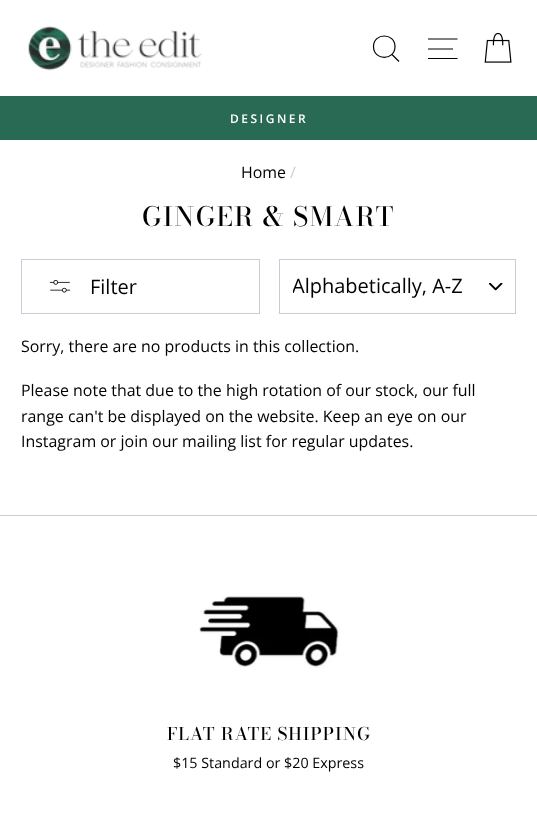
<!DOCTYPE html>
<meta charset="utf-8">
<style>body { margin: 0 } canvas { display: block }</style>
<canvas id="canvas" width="537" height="826"></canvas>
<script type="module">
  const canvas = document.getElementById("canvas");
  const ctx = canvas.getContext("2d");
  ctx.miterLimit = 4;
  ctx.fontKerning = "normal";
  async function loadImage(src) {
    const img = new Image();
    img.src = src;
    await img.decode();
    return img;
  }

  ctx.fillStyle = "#ffffff";
  ctx.fillRect(0, 0, 537, 826);
  ctx.drawImage(await loadImage("img1.png"), 28, 26, 174, 45);
  ctx.beginPath();
  ctx.moveTo(395, 46.5);
  ctx.bezierCurveTo(395, 61, 373.5, 61, 373.5, 46.5);
  ctx.bezierCurveTo(373.5, 32.5, 395, 32.5, 395, 46.5);
  ctx.closePath();
  ctx.moveTo(399, 61.5);
  ctx.lineTo(392, 54.5);
  ctx.strokeStyle = "#000000";
  ctx.lineWidth = 1.2;
  ctx.stroke();
  ctx.beginPath();
  ctx.moveTo(428, 39);
  ctx.lineTo(457.5, 39);
  ctx.moveTo(428, 49);
  ctx.lineTo(453, 49);
  ctx.moveTo(428, 58.5);
  ctx.lineTo(457.5, 58.5);
  ctx.stroke();
  ctx.drawImage(await loadImage("img2.png"), 484, 32, 28, 31);
  ctx.fillStyle = "#296a54";
  ctx.fillRect(0, 96, 537, 44);
  ctx.letterSpacing = "2.5px";
  ctx.font = "600 12px Open Sans";
  ctx.fillStyle = "#ffffff";
  ctx.fillText("DESIGNER", 230, 123);
  ctx.letterSpacing = "0px";
  ctx.font = "15.95px Open Sans";
  ctx.fillStyle = "#000000";
  ctx.fillText("Home", 241, 178);
  ctx.fillStyle = "#c7cdd6";
  ctx.fillText("/", 290, 178);
  ctx.letterSpacing = "1.3px";
  ctx.font = "500 26.5px Bodoni Moda";
  ctx.fillStyle = "#000000";
  ctx.fillText("GINGER & SMART", 142, 226);
  ctx.strokeStyle = "#c7cdd6";
  ctx.lineWidth = 1;
  ctx.strokeRect(21.5, 259.5, 238, 54);
  ctx.drawImage(await loadImage("img3.png"), 49, 280, 22, 13);
  ctx.letterSpacing = "0px";
  ctx.font = "20px Open Sans";
  ctx.fillText("Filter", 90, 294);
  ctx.drawImage(await loadImage("img4.png"), 489, 283, 14, 8);
  ctx.strokeRect(279.5, 259.5, 236, 54);
  ctx.save();
  ctx.beginPath();
  ctx.rect(293, 271, 187, 32);
  ctx.clip();
  ctx.fillText("Alphabetically, A-Z", 292, 293);
  ctx.restore();
  ctx.font = "15.95px Open Sans";
  ctx.fillText("Sorry, there are no products in this collection.", 21, 352);
  ctx.fillText("Please note that due to the high rotation of our stock, our full", 21, 396);
  ctx.fillText("range can't be displayed on the website. Keep an eye on our", 21, 422);
  ctx.fillText("Instagram or join our mailing list for regular updates.", 21, 447);
  ctx.fillStyle = "#c7cdd6";
  ctx.fillRect(0, 515, 537, 1);
  ctx.drawImage(await loadImage("img5.png"), 199, 596, 141, 72);
  ctx.letterSpacing = "0.9px";
  ctx.font = "500 17.5px 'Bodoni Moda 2'";
  ctx.fillStyle = "#000000";
  ctx.fillText("FLAT RATE SHIPPING", 167, 740);
  ctx.letterSpacing = "0px";
  ctx.font = "14.3px Open Sans";
  ctx.fillText("$15 Standard or $20 Express", 173, 768);
</script>
